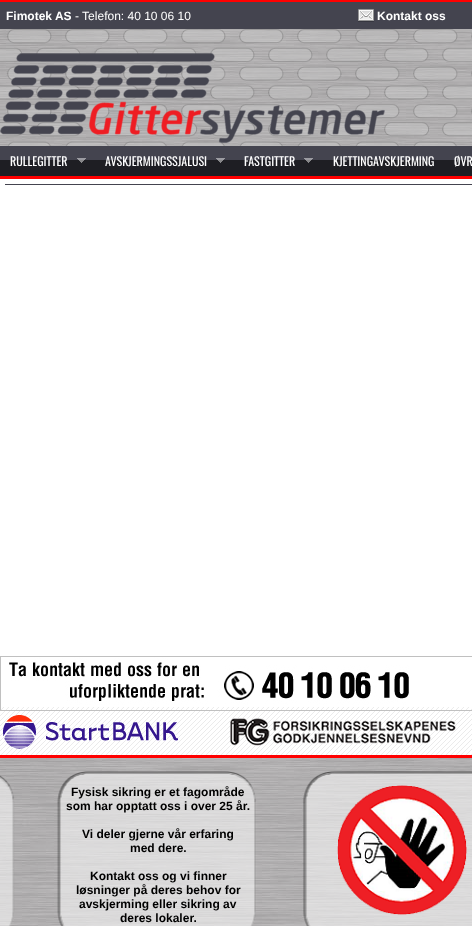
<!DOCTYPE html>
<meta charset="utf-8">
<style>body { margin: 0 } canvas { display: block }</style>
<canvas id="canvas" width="472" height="926"></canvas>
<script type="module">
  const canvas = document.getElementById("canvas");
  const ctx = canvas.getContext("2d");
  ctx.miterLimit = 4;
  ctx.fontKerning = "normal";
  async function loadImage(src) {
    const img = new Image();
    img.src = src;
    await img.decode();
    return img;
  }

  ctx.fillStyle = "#ffffff";
  ctx.fillRect(0, 0, 472, 926);
  ctx.fillStyle = "#ff0000";
  ctx.fillRect(0, 0, 472, 2);
  ctx.fillStyle = "#44444f";
  ctx.fillRect(0, 2, 472, 27);
  ctx.font = "bold 12px Liberation Sans";
  ctx.fillStyle = "#ffffff";
  ctx.fillText("Fimotek AS", 6, 20);
  ctx.font = "12px Liberation Sans";
  ctx.fillText("- Telefon: 40 10 06 10", 75, 20);
  ctx.drawImage(await loadImage("img1.png"), 358, 9, 16, 13);
  ctx.font = "bold 12px Liberation Sans";
  ctx.fillText("Kontakt oss", 377, 20);
  ctx.drawImage(await loadImage("img2.png"), 0, 29, 472, 117);
  ctx.drawImage(await loadImage("img3.png"), 0, 29, 472, 150);
  ctx.drawImage(await loadImage("img4.png"), 0, 53, 385, 90);
  ctx.drawImage(await loadImage("img5.png"), 0, 146, 472, 30);
  ctx.font = "12px Oswald";
  ctx.fillText("RULLEGITTER", 10, 166);
  ctx.drawImage(await loadImage("img6.png"), 77, 158, 9, 5);
  ctx.fillText("AVSKJERMINGSSJALUSI", 105, 166);
  ctx.drawImage(await loadImage("img6.png"), 216, 158, 9, 5);
  ctx.fillText("FASTGITTER", 244, 166);
  ctx.drawImage(await loadImage("img6.png"), 304, 158, 9, 5);
  ctx.fillText("KJETTINGAVSKJERMING", 333, 166);
  ctx.fillText("ØVR", 454, 166);
  ctx.fillStyle = "#44444f";
  ctx.fillRect(5, 184, 467, 1);
  ctx.drawImage(await loadImage("img7.png"), 1, 707, 471, 3);
  ctx.strokeStyle = "#c0c0c0";
  ctx.strokeRect(0.5, 656.5, 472, 54);
  ctx.drawImage(await loadImage("img8.png"), 1, 657, 471, 50);
  ctx.drawImage(await loadImage("img9.png"), 0, 711, 472, 44);
  ctx.drawImage(await loadImage("img10.png"), 3, 715, 175, 34);
  ctx.drawImage(await loadImage("img11.png"), 230, 718, 226, 28);
  ctx.drawImage(await loadImage("img12.png"), 0, 755, 472, 171);
  ctx.drawImage(await loadImage("img13.png"), 0, 771, 472, 155);
  ctx.font = "bold 12px Liberation Sans";
  ctx.fillStyle = "#000000";
  ctx.fillText("Fysisk sikring er et fagområde", 71, 796);
  ctx.fillText("som har opptatt oss i over 25 år.", 66, 810);
  ctx.fillText("Vi deler gjerne vår erfaring", 82, 838);
  ctx.fillText("med dere.", 130, 852);
  ctx.fillText("Kontakt oss og vi finner", 90, 880);
  ctx.fillText("løsninger på deres behov for", 76, 894);
  ctx.fillText("avskjerming eller sikring av", 79, 908);
  ctx.fillText("deres lokaler.", 120, 922);
  ctx.drawImage(await loadImage("img14.png"), 337, 785, 130, 130);
</script>
